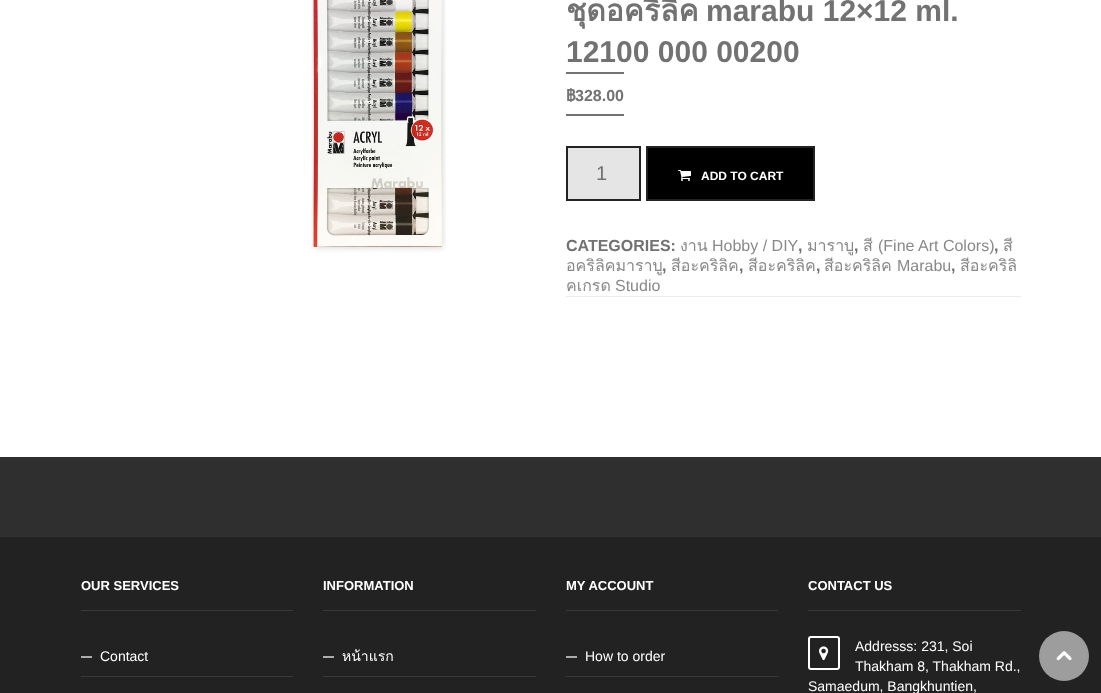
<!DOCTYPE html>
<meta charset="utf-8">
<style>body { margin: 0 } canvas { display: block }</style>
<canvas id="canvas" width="1101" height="693"></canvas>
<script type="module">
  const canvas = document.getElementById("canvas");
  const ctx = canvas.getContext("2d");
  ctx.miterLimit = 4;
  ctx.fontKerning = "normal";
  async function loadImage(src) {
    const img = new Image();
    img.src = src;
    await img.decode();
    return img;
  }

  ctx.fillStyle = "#ffffff";
  ctx.fillRect(0, 0, 1101, 693);
  ctx.drawImage(await loadImage("img1.png"), 311, 0, 135, 253);
  ctx.font = "bold 30px Loma";
  ctx.fillStyle = "#727272";
  ctx.fillText("ชุดอคริลิค", 566, 21);
  ctx.font = "bold 30px Liberation Sans";
  ctx.fillText("marabu 12×12 ml.", 706, 21);
  ctx.fillText("12100 000 00200", 566, 62);
  ctx.fillRect(566, 72, 58, 2);
  ctx.fillRect(566, 114, 58, 2);
  ctx.font = "bold 16px Loma";
  ctx.fillText("฿", 566, 101);
  ctx.font = "bold 16px Liberation Sans";
  ctx.fillText("328.00", 575, 101);
  ctx.fillStyle = "#e5e5e5";
  ctx.beginPath();
  ctx.rect(567, 147, 73, 53);
  ctx.fill();
  ctx.strokeStyle = "#222222";
  ctx.lineWidth = 2;
  ctx.stroke();
  ctx.font = "20px Liberation Sans";
  ctx.fillStyle = "#727272";
  ctx.fillText("1", 596, 180);
  ctx.fillStyle = "#000000";
  ctx.beginPath();
  ctx.rect(647, 147, 167, 53);
  ctx.fill();
  ctx.stroke();
  ctx.drawImage(await loadImage("img2.png"), 678, 170, 13, 11);
  ctx.font = "bold 12px Liberation Sans";
  ctx.fillStyle = "#ffffff";
  ctx.fillText("ADD TO CART", 701, 180);
  ctx.font = "bold 16px Liberation Sans";
  ctx.fillStyle = "#727272";
  ctx.fillText("CATEGORIES:", 566, 251);
  ctx.font = "16px Loma";
  ctx.fillStyle = "#898989";
  ctx.fillText("งาน", 680, 251);
  ctx.font = "16px Liberation Sans";
  ctx.fillText("Hobby / DIY", 712, 251);
  ctx.font = "bold 16px Liberation Sans";
  ctx.fillStyle = "#727272";
  ctx.fillText(",", 798, 251);
  ctx.font = "16px Loma";
  ctx.fillStyle = "#898989";
  ctx.fillText("มาราบู", 807, 251);
  ctx.font = "bold 16px Liberation Sans";
  ctx.fillStyle = "#727272";
  ctx.fillText(",", 854, 251);
  ctx.font = "16px Loma";
  ctx.fillStyle = "#898989";
  ctx.fillText("สี", 863, 251);
  ctx.font = "16px Liberation Sans";
  ctx.fillText("(Fine Art Colors)", 878, 251);
  ctx.font = "bold 16px Liberation Sans";
  ctx.fillStyle = "#727272";
  ctx.fillText(",", 994, 251);
  ctx.font = "16px Loma";
  ctx.fillStyle = "#898989";
  ctx.fillText("สี", 1003, 251);
  ctx.fillText("อคริลิคมาราบู", 566, 271);
  ctx.font = "bold 16px Liberation Sans";
  ctx.fillStyle = "#727272";
  ctx.fillText(",", 662, 271);
  ctx.font = "16px Loma";
  ctx.fillStyle = "#898989";
  ctx.fillText("สีอะคริลิค", 671, 271);
  ctx.font = "bold 16px Liberation Sans";
  ctx.fillStyle = "#727272";
  ctx.fillText(",", 739, 271);
  ctx.font = "16px Loma";
  ctx.fillStyle = "#898989";
  ctx.fillText("สีอะคริลิค", 748, 271);
  ctx.font = "bold 16px Liberation Sans";
  ctx.fillStyle = "#727272";
  ctx.fillText(",", 816, 271);
  ctx.font = "16px Loma";
  ctx.fillStyle = "#898989";
  ctx.fillText("สีอะคริลิค", 824, 271);
  ctx.font = "16px Liberation Sans";
  ctx.fillText("Marabu", 897, 271);
  ctx.font = "bold 16px Liberation Sans";
  ctx.fillStyle = "#727272";
  ctx.fillText(",", 951, 271);
  ctx.font = "16px Loma";
  ctx.fillStyle = "#898989";
  ctx.fillText("สีอะคริลิ", 960, 271);
  ctx.fillText("คเกรด", 566, 291);
  ctx.font = "16px Liberation Sans";
  ctx.fillText("Studio", 615, 291);
  ctx.fillStyle = "#ececec";
  ctx.fillRect(566, 296, 455, 1);
  ctx.fillStyle = "#222222";
  ctx.fillRect(0, 537, 1101, 156);
  ctx.fillStyle = "#2f2f2f";
  ctx.fillRect(0, 457, 1101, 80);
  ctx.fillStyle = "#393939";
  ctx.fillRect(81, 610, 212, 1);
  ctx.font = "bold 13px Liberation Sans";
  ctx.fillStyle = "#ffffff";
  ctx.fillText("OUR SERVICES", 81, 590);
  ctx.fillStyle = "#393939";
  ctx.fillRect(81, 676, 212, 1);
  ctx.fillStyle = "#adadad";
  ctx.fillRect(81, 656, 11, 2);
  ctx.font = "14px Liberation Sans";
  ctx.fillStyle = "#ffffff";
  ctx.fillText("Contact", 100, 661);
  ctx.fillStyle = "#393939";
  ctx.fillRect(323, 610, 213, 1);
  ctx.font = "bold 13px Liberation Sans";
  ctx.fillStyle = "#ffffff";
  ctx.fillText("INFORMATION", 323, 590);
  ctx.fillStyle = "#393939";
  ctx.fillRect(323, 676, 213, 1);
  ctx.fillStyle = "#adadad";
  ctx.fillRect(323, 656, 11, 2);
  ctx.font = "14px Loma";
  ctx.fillStyle = "#ffffff";
  ctx.fillText("หน้าแรก", 342, 661);
  ctx.fillStyle = "#393939";
  ctx.fillRect(566, 610, 212, 1);
  ctx.font = "bold 13px Liberation Sans";
  ctx.fillStyle = "#ffffff";
  ctx.fillText("MY ACCOUNT", 566, 590);
  ctx.fillStyle = "#393939";
  ctx.fillRect(566, 676, 212, 1);
  ctx.fillStyle = "#adadad";
  ctx.fillRect(566, 656, 11, 2);
  ctx.font = "14px Liberation Sans";
  ctx.fillStyle = "#ffffff";
  ctx.fillText("How to order", 585, 661);
  ctx.fillStyle = "#393939";
  ctx.fillRect(808, 610, 213, 1);
  ctx.font = "bold 13px Liberation Sans";
  ctx.fillStyle = "#ffffff";
  ctx.fillText("CONTACT US", 808, 590);
  ctx.beginPath();
  ctx.roundRect(809, 637, 30, 32, 2);
  ctx.strokeStyle = "#ffffff";
  ctx.stroke();
  ctx.drawImage(await loadImage("img3.png"), 819, 646, 10, 15);
  ctx.font = "14px Liberation Sans";
  ctx.fillText("Addresss: 231, Soi", 855, 651);
  ctx.fillText("Thakham 8, Thakham Rd.,", 855, 671);
  ctx.fillText("Samaedum, Bangkhuntien,", 808, 691);
  ctx.fillStyle = "#9d9d9d";
  ctx.beginPath();
  ctx.arc(1064, 656, 25, 0, Math.PI * 2);
  ctx.fill();
  ctx.drawImage(await loadImage("img4.png"), 1056, 651, 16, 10);
</script>
